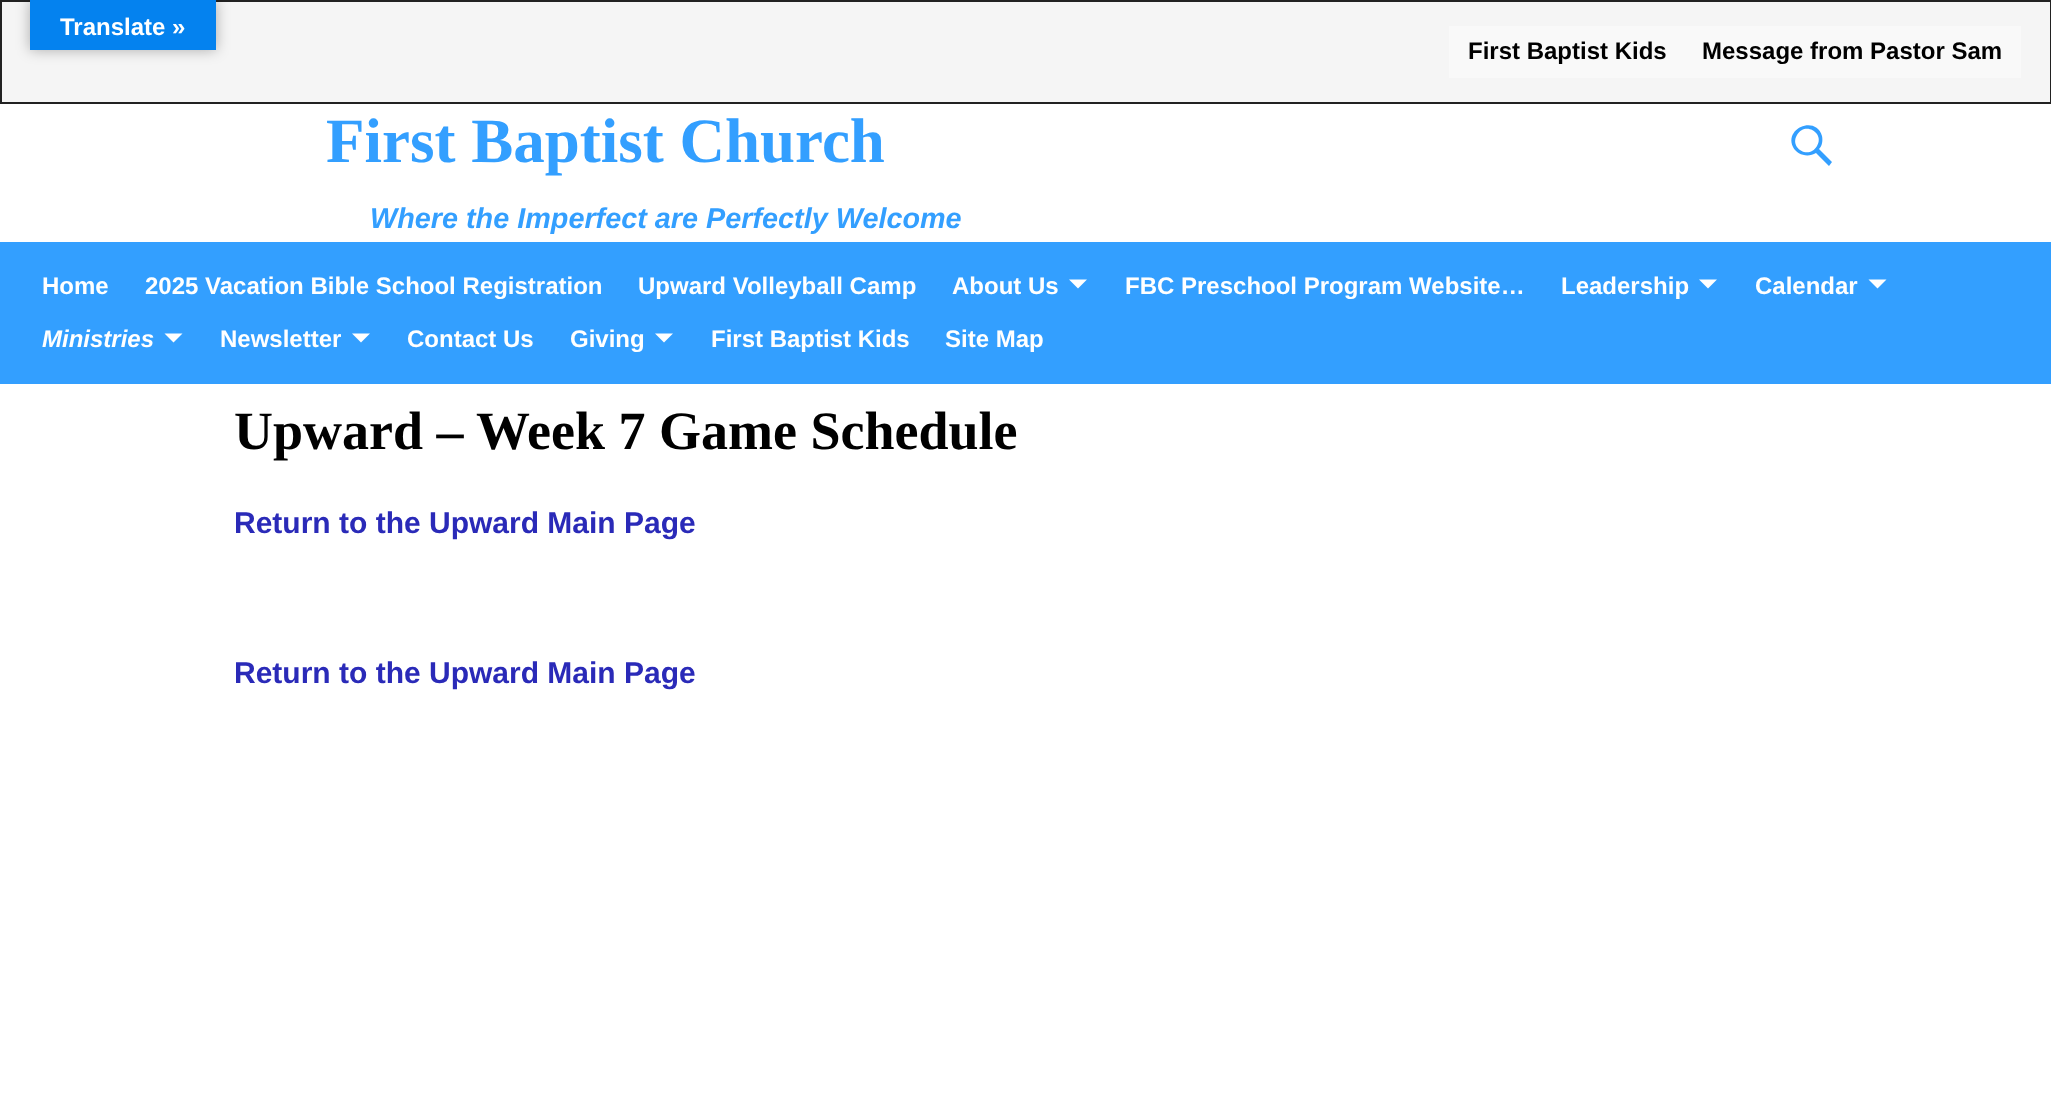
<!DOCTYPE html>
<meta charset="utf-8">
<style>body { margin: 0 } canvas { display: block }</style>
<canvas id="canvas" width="2051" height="1095"></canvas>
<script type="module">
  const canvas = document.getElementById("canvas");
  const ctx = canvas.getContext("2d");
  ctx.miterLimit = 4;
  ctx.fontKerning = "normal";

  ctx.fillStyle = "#ffffff";
  ctx.fillRect(0, 0, 2051, 1095);
  ctx.fillStyle = "#f5f5f5";
  ctx.beginPath();
  ctx.rect(1, 1, 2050, 102);
  ctx.fill();
  ctx.strokeStyle = "#222222";
  ctx.lineWidth = 2;
  ctx.stroke();
  ctx.fillStyle = "rgba(0, 0, 0, 0.3)";
  ctx.filter = "blur(7px)";
  ctx.beginPath();
  ctx.rect(30, 0, 186, 50);
  ctx.fill();
  ctx.filter = "none";
  ctx.fillStyle = "#0482ef";
  ctx.fillRect(30, 0, 186, 50);
  ctx.font = "bold 24px Liberation Sans";
  ctx.fillStyle = "#ffffff";
  ctx.fillText("Translate »", 60, 35);
  ctx.fillStyle = "#f9f9f9";
  ctx.fillRect(1449, 26, 572, 52);
  ctx.fillStyle = "#000000";
  ctx.fillText("First Baptist Kids", 1468, 59);
  ctx.fillText("Message from Pastor Sam", 1702, 59);
  ctx.font = "bold 63px Liberation Serif";
  ctx.fillStyle = "#339fff";
  ctx.fillText("First Baptist Church", 326, 162);
  ctx.beginPath();
  ctx.moveTo(1832, 162);
  ctx.lineTo(1829, 166);
  ctx.lineTo(1816, 153);
  ctx.bezierCurveTo(1808, 158, 1797, 155, 1793, 147);
  ctx.bezierCurveTo(1784, 128, 1816, 115, 1822, 136);
  ctx.bezierCurveTo(1823, 141, 1822, 146, 1819, 149);
  ctx.closePath();
  ctx.moveTo(1797, 135);
  ctx.bezierCurveTo(1789, 148, 1809, 160, 1817, 146);
  ctx.bezierCurveTo(1825, 133, 1805, 121, 1797, 135);
  ctx.closePath();
  ctx.fill();
  ctx.font = "italic bold 28.8px Liberation Sans";
  ctx.fillText("Where the Imperfect are Perfectly Welcome", 370, 228);
  ctx.fillRect(0, 242, 2051, 142);
  ctx.font = "bold 24px Liberation Sans";
  ctx.fillStyle = "#ffffff";
  ctx.fillText("Home", 42, 294);
  ctx.fillText("2025 Vacation Bible School Registration", 145, 294);
  ctx.fillText("Upward Volleyball Camp", 638, 294);
  ctx.fillText("About Us", 952, 294);
  ctx.beginPath();
  ctx.moveTo(1069, 279.5);
  ctx.lineTo(1087, 279.5);
  ctx.lineTo(1078, 288.5);
  ctx.closePath();
  ctx.fill();
  ctx.fillText("FBC Preschool Program Website…", 1125, 294);
  ctx.fillText("Leadership", 1561, 294);
  ctx.beginPath();
  ctx.moveTo(1699, 279.5);
  ctx.lineTo(1717, 279.5);
  ctx.lineTo(1708, 288.5);
  ctx.closePath();
  ctx.fill();
  ctx.fillText("Calendar", 1755, 294);
  ctx.beginPath();
  ctx.moveTo(1868.5, 279.5);
  ctx.lineTo(1886.5, 279.5);
  ctx.lineTo(1877.5, 288.5);
  ctx.closePath();
  ctx.fill();
  ctx.font = "italic bold 24px Liberation Sans";
  ctx.fillText("Ministries", 42, 347);
  ctx.beginPath();
  ctx.moveTo(164.5, 333.5);
  ctx.lineTo(182.5, 333.5);
  ctx.lineTo(173.5, 342.5);
  ctx.closePath();
  ctx.fill();
  ctx.font = "bold 24px Liberation Sans";
  ctx.fillText("Newsletter", 220, 347);
  ctx.beginPath();
  ctx.moveTo(352, 333.5);
  ctx.lineTo(370, 333.5);
  ctx.lineTo(361, 342.5);
  ctx.closePath();
  ctx.fill();
  ctx.fillText("Contact Us", 407, 347);
  ctx.fillText("Giving", 570, 347);
  ctx.beginPath();
  ctx.moveTo(655, 333.5);
  ctx.lineTo(673, 333.5);
  ctx.lineTo(664, 342.5);
  ctx.closePath();
  ctx.fill();
  ctx.fillText("First Baptist Kids", 711, 347);
  ctx.fillText("Site Map", 945, 347);
  ctx.font = "bold 54px Liberation Serif";
  ctx.fillStyle = "#000000";
  ctx.fillText("Upward – Week 7 Game Schedule", 234, 449);
  ctx.font = "bold 30px Liberation Sans";
  ctx.fillStyle = "#2a2ab8";
  ctx.fillText("Return to the Upward Main Page", 234, 533);
  ctx.fillText("Return to the Upward Main Page", 234, 683);
</script>
